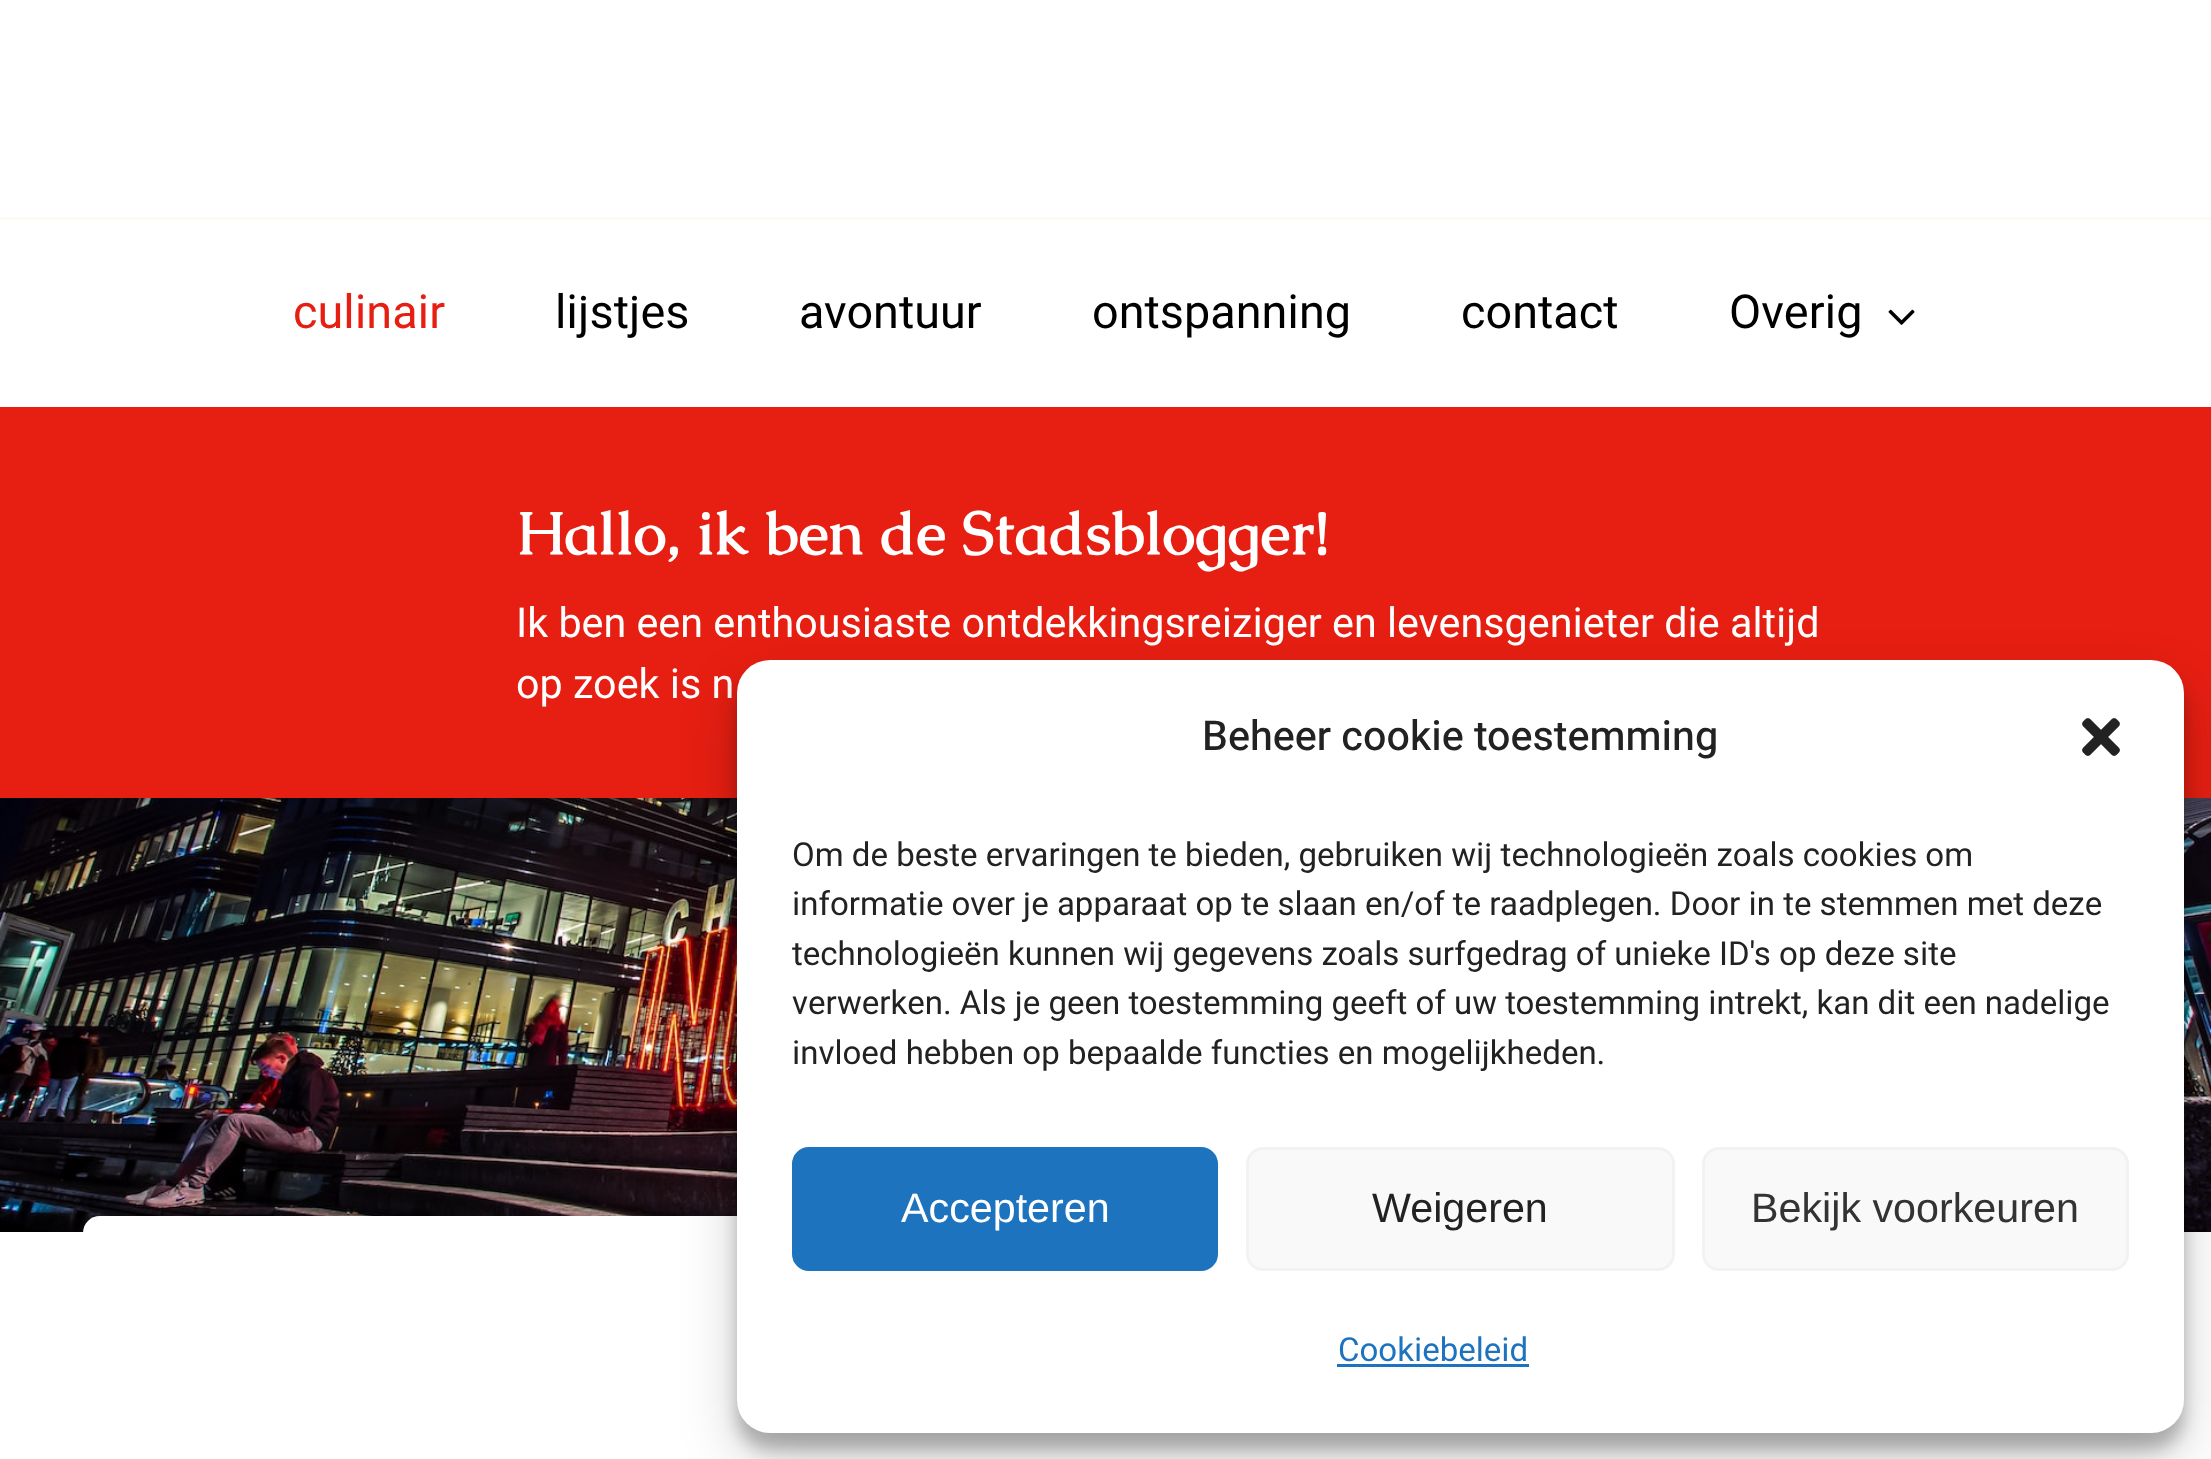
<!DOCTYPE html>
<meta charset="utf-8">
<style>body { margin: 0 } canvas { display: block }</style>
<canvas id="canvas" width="2211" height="1459"></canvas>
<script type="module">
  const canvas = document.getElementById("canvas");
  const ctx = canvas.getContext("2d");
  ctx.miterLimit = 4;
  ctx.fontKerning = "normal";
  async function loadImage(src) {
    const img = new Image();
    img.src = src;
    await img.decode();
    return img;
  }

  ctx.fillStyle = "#ffffff";
  ctx.fillRect(0, 0, 2211, 1459);
  ctx.fillStyle = "#fff9f4";
  ctx.fillRect(0, 217, 2211, 3);
  ctx.font = "46.75px Heebo";
  ctx.fillStyle = "#e61f12";
  ctx.fillText("culinair", 293, 328);
  ctx.fillStyle = "#000000";
  ctx.fillText("lijstjes", 555, 328);
  ctx.fillText("avontuur", 799, 328);
  ctx.fillText("ontspanning", 1092, 328);
  ctx.fillText("contact", 1461, 328);
  ctx.fillText("Overig", 1729, 328);
  ctx.drawImage(await loadImage("img1.png"), 1888, 309, 27, 16);
  ctx.fillStyle = "#e61f12";
  ctx.fillRect(0, 407, 2211, 391);
  ctx.font = "bold 60.5px Caudex";
  ctx.fillStyle = "#ffffff";
  ctx.fillText("Hallo, ik ben de Stadsblogger!", 516, 554);
  ctx.font = "41.25px Heebo";
  ctx.fillText("Ik ben een enthousiaste ontdekkingsreiziger en levensgenieter die altijd", 516, 637);
  ctx.fillText("op zoek is n", 516, 698);
  ctx.drawImage(await loadImage("img2.png"), 0, 798, 2211, 434);
  ctx.beginPath();
  ctx.moveTo(100, 1216);
  ctx.lineTo(2112, 1216);
  ctx.bezierCurveTo(2121.5, 1216, 2129, 1223.5, 2129, 1233);
  ctx.lineTo(2129, 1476);
  ctx.lineTo(83, 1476);
  ctx.lineTo(83, 1233);
  ctx.bezierCurveTo(83, 1223.5, 90.5, 1216, 100, 1216);
  ctx.closePath();
  ctx.fill();
  ctx.fillStyle = "rgba(0, 0, 0, 0.23)";
  ctx.filter = "blur(8px)";
  ctx.beginPath();
  ctx.roundRect(737, 677, 1447, 772, 33);
  ctx.fill();
  ctx.filter = "none";
  ctx.fillStyle = "rgba(0, 0, 0, 0.19)";
  ctx.filter = "blur(27.5px)";
  ctx.beginPath();
  ctx.roundRect(737, 688, 1447, 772, 33);
  ctx.fill();
  ctx.filter = "none";
  ctx.fillStyle = "#ffffff";
  ctx.beginPath();
  ctx.roundRect(737, 660, 1447, 773, 33);
  ctx.fill();
  ctx.font = "500 41.25px Heebo";
  ctx.fillStyle = "#222222";
  ctx.fillText("Beheer cookie toestemming", 1202, 750);
  ctx.drawImage(await loadImage("img3.png"), 2082, 718, 38, 38);
  ctx.font = "33px Heebo";
  ctx.fillText("Om de beste ervaringen te bieden, gebruiken wij technologieën zoals cookies om", 792, 866);
  ctx.fillText("informatie over je apparaat op te slaan en/of te raadplegen. Door in te stemmen met deze", 792, 915);
  ctx.fillText("technologieën kunnen wij gegevens zoals surfgedrag of unieke ID's op deze site", 792, 965);
  ctx.fillText("verwerken. Als je geen toestemming geeft of uw toestemming intrekt, kan dit een nadelige", 792, 1014);
  ctx.fillText("invloed hebben op bepaalde functies en mogelijkheden.", 792, 1064);
  ctx.fillStyle = "#1e73be";
  ctx.beginPath();
  ctx.roundRect(793.5, 1148.5, 423, 121, 15.5);
  ctx.fill();
  ctx.strokeStyle = "#1e73be";
  ctx.lineWidth = 3;
  ctx.stroke();
  ctx.font = "41.25px Liberation Sans";
  ctx.fillStyle = "#ffffff";
  ctx.fillText("Accepteren", 901, 1222);
  ctx.fillStyle = "#f9f9f9";
  ctx.beginPath();
  ctx.roundRect(1247.5, 1148.5, 426, 121, 15.5);
  ctx.fill();
  ctx.strokeStyle = "#f2f2f2";
  ctx.stroke();
  ctx.fillStyle = "#222222";
  ctx.fillText("Weigeren", 1372, 1222);
  ctx.fillStyle = "#f9f9f9";
  ctx.beginPath();
  ctx.roundRect(1703.5, 1148.5, 424, 121, 15.5);
  ctx.fill();
  ctx.stroke();
  ctx.fillStyle = "#333333";
  ctx.fillText("Bekijk voorkeuren", 1751, 1222);
  ctx.font = "33px Heebo";
  ctx.fillStyle = "#1e73be";
  ctx.fillText("Cookiebeleid", 1338, 1361);
  ctx.fillRect(1337, 1364, 192, 3);
</script>
